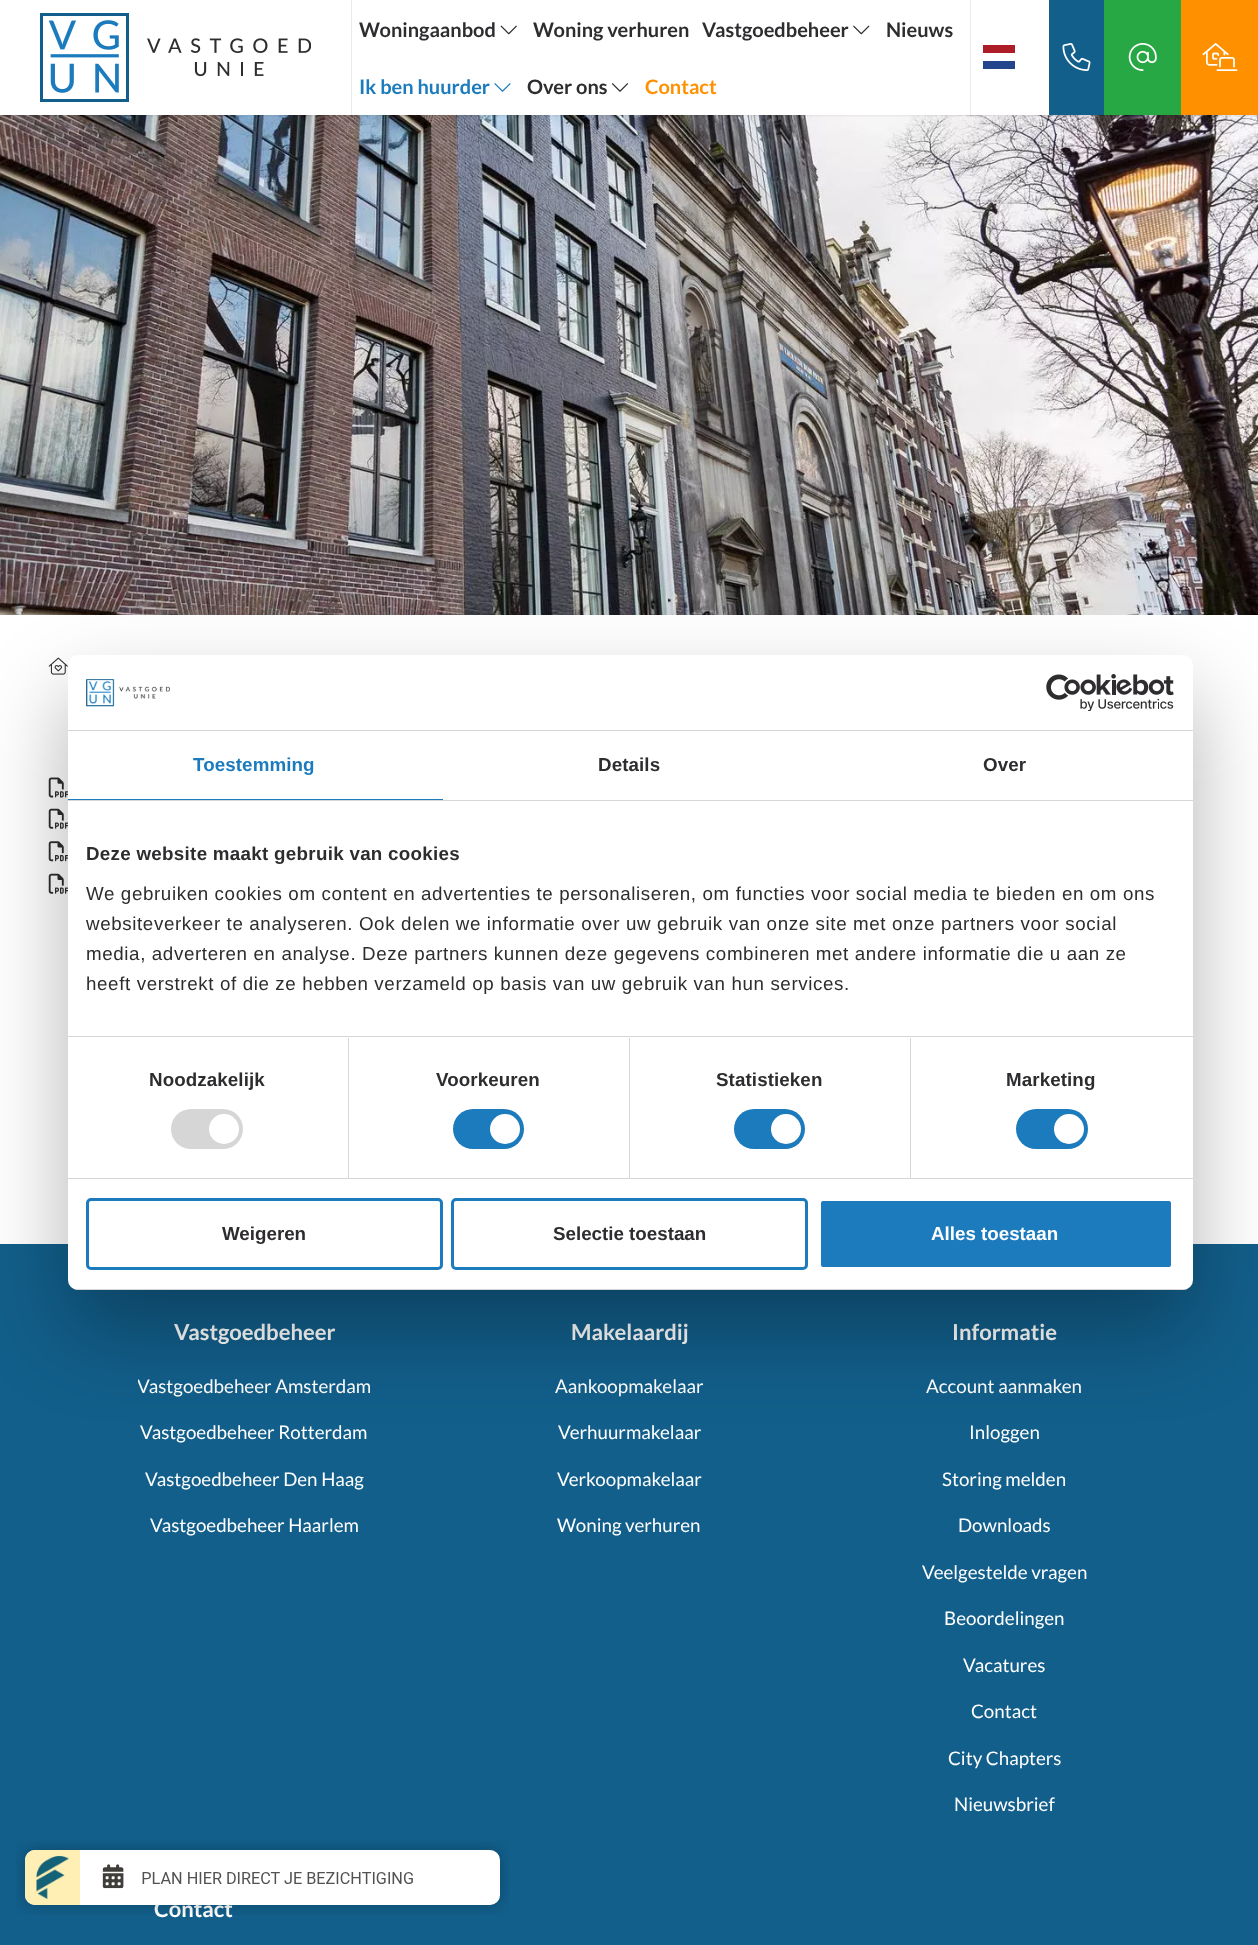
<!DOCTYPE html>
<meta charset="utf-8">
<style>body { margin: 0 } canvas { display: block }</style>
<canvas id="canvas" width="1258" height="1945"></canvas>
<script type="module">
  const canvas = document.getElementById("canvas");
  const ctx = canvas.getContext("2d");
  ctx.miterLimit = 4;
  ctx.fontKerning = "normal";
  async function loadImage(src) {
    const img = new Image();
    img.src = src;
    await img.decode();
    return img;
  }

  ctx.fillStyle = "#ffffff";
  ctx.fillRect(0, 0, 1258, 1945);
  ctx.drawImage(await loadImage("img9.png"), 0, 115, 1258, 500);
  ctx.save();
  ctx.beginPath();
  ctx.rect(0, 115, 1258, 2);
  ctx.clip();
  ctx.fillStyle = "rgba(0, 0, 0, 0.07)";
  ctx.filter = "blur(1px)";
  ctx.beginPath();
  ctx.rect(0, 1, 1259, 115);
  ctx.fill();
  ctx.filter = "none";
  ctx.restore();
  ctx.fillStyle = "#edeae8";
  ctx.fillRect(351, 0, 1, 115);
  ctx.drawImage(await loadImage("img1.png"), 40, 13, 271, 89);
  ctx.font = "bold 20px Lato";
  ctx.fillStyle = "#2e2c2f";
  ctx.fillText("Woningaanbod", 359, 37);
  ctx.drawImage(await loadImage("img2.png"), 500, 25, 17, 10);
  ctx.fillText("Woning verhuren", 533, 37);
  ctx.fillText("Vastgoedbeheer", 702, 37);
  ctx.drawImage(await loadImage("img3.png"), 853, 25, 17, 10);
  ctx.fillText("Nieuws", 886, 37);
  ctx.fillStyle = "#1b7bbd";
  ctx.fillText("Ik ben huurder", 359, 94);
  ctx.drawImage(await loadImage("img4.png"), 494, 83, 17, 9);
  ctx.fillStyle = "#2e2c2f";
  ctx.fillText("Over ons", 527, 94);
  ctx.drawImage(await loadImage("img5.png"), 611, 83, 18, 9);
  ctx.fillStyle = "#ff9000";
  ctx.fillText("Contact", 645, 94);
  ctx.fillStyle = "#edeae8";
  ctx.fillRect(970, 0, 1, 115);
  ctx.fillStyle = "#21468b";
  ctx.fillRect(983, 61, 32, 8);
  ctx.fillStyle = "#ae1c28";
  ctx.fillRect(983, 45, 32, 8);
  ctx.fillStyle = "#125f8b";
  ctx.fillRect(1049, 0, 55, 115);
  ctx.drawImage(await loadImage("img6.png"), 1062, 43, 29, 28);
  ctx.fillStyle = "#28a745";
  ctx.fillRect(1104, 0, 77, 115);
  ctx.drawImage(await loadImage("img7.png"), 1128, 43, 29, 28);
  ctx.fillStyle = "#ff9000";
  ctx.fillRect(1181, 0, 77, 115);
  ctx.drawImage(await loadImage("img8.png"), 1202, 43, 36, 28);
  ctx.drawImage(await loadImage("img10.png"), 48, 657, 20, 18);
  ctx.drawImage(await loadImage("img11.png"), 48, 777, 20, 21);
  ctx.drawImage(await loadImage("img12.png"), 48, 808, 20, 21);
  ctx.drawImage(await loadImage("img13.png"), 48, 841, 20, 21);
  ctx.drawImage(await loadImage("img12.png"), 48, 873, 20, 21);
  ctx.fillStyle = "#125f8b";
  ctx.fillRect(0, 1244, 1258, 701);
  ctx.font = "bold 22px Lato";
  ctx.fillStyle = "#ffffff";
  ctx.fillText("Vastgoedbeheer", 174, 1340);
  ctx.save();
  ctx.beginPath();
  ctx.rect(138, 1374, 233, 24);
  ctx.clip();
  ctx.font = "18.75px Lato";
  ctx.fillText("Vastgoedbeheer Amsterdam", 137, 1393);
  ctx.restore();
  ctx.font = "18.75px Lato";
  ctx.fillText("Vastgoedbeheer Rotterdam", 140, 1439);
  ctx.fillText("Vastgoedbeheer Den Haag", 145, 1486);
  ctx.fillText("Vastgoedbeheer Haarlem", 150, 1532);
  ctx.font = "bold 22px Lato";
  ctx.fillText("Makelaardij", 571, 1340);
  ctx.font = "18.75px Lato";
  ctx.fillText("Aankoopmakelaar", 555, 1393);
  ctx.fillText("Verhuurmakelaar", 558, 1439);
  ctx.fillText("Verkoopmakelaar", 557, 1486);
  ctx.fillText("Woning verhuren", 557, 1532);
  ctx.font = "bold 22px Lato";
  ctx.fillText("Informatie", 952, 1340);
  ctx.font = "18.75px Lato";
  ctx.fillText("Account aanmaken", 926, 1393);
  ctx.fillText("Inloggen", 969, 1439);
  ctx.fillText("Storing melden", 942, 1486);
  ctx.fillText("Downloads", 958, 1532);
  ctx.fillText("Veelgestelde vragen", 922, 1579);
  ctx.fillText("Beoordelingen", 944, 1625);
  ctx.fillText("Vacatures", 963, 1672);
  ctx.fillText("Contact", 971, 1718);
  ctx.fillText("City Chapters", 948, 1765);
  ctx.fillText("Nieuwsbrief", 954, 1811);
  ctx.font = "bold 22px Lato";
  ctx.fillText("Contact", 154, 1917);
  ctx.fillStyle = "rgba(0, 0, 0, 0.3)";
  ctx.filter = "blur(42.5px)";
  ctx.beginPath();
  ctx.roundRect(68, 695, 1125, 635, 10);
  ctx.fill();
  ctx.filter = "none";
  ctx.fillStyle = "#ffffff";
  ctx.beginPath();
  ctx.roundRect(68, 655, 1125, 635, 10);
  ctx.fill();
  ctx.fillStyle = "#d6d6d6";
  ctx.fillRect(68, 730, 1125, 1);
  ctx.drawImage(await loadImage("img14.png"), 86, 679, 84, 28);
  ctx.drawImage(await loadImage("img15.png"), 1046, 674, 128, 37);
  ctx.fillRect(68, 800, 1125, 1);
  ctx.fillStyle = "#1b7bbd";
  ctx.fillRect(68, 799, 375, 1);
  ctx.letterSpacing = "0.1px";
  ctx.font = "bold 18.75px Liberation Sans";
  ctx.fillText("Toestemming", 193, 771);
  ctx.fillStyle = "#2e2c2f";
  ctx.fillText("Details", 598, 771);
  ctx.fillText("Over", 983, 771);
  ctx.fillStyle = "#d6d6d6";
  ctx.fillRect(68, 1036, 1125, 1);
  ctx.letterSpacing = "0.3px";
  ctx.fillStyle = "#2e2c2f";
  ctx.fillText("Deze website maakt gebruik van cookies", 86, 860);
  ctx.letterSpacing = "0.62px";
  ctx.font = "18.75px Liberation Sans";
  ctx.fillText("We gebruiken cookies om content en advertenties te personaliseren, om functies voor social media te bieden en om ons", 86, 900);
  ctx.fillText("websiteverkeer te analyseren. Ook delen we informatie over uw gebruik van onze site met onze partners voor social", 86, 930);
  ctx.fillText("media, adverteren en analyse. Deze partners kunnen deze gegevens combineren met andere informatie die u aan ze", 86, 960);
  ctx.fillText("heeft verstrekt of die ze hebben verzameld op basis van uw gebruik van hun services.", 86, 990);
  ctx.fillStyle = "#d6d6d6";
  ctx.fillRect(68, 1178, 1125, 1);
  ctx.fillRect(348, 1038, 1, 140);
  ctx.letterSpacing = "0.1px";
  ctx.font = "bold 18.75px Liberation Sans";
  ctx.fillStyle = "#2e2c2f";
  ctx.fillText("Noodzakelijk", 149, 1086);
  ctx.fillStyle = "#d6d6d6";
  ctx.beginPath();
  ctx.roundRect(171, 1109, 72, 40, 20);
  ctx.fill();
  ctx.fillStyle = "#ffffff";
  ctx.beginPath();
  ctx.arc(224, 1129, 15, 0, Math.PI * 2);
  ctx.fill();
  ctx.fillStyle = "#d6d6d6";
  ctx.fillRect(629, 1038, 1, 140);
  ctx.fillStyle = "#2e2c2f";
  ctx.fillText("Voorkeuren", 436, 1086);
  ctx.fillStyle = "#1b7bbd";
  ctx.beginPath();
  ctx.roundRect(453, 1109, 71, 40, 20);
  ctx.fill();
  ctx.fillStyle = "#ffffff";
  ctx.beginPath();
  ctx.arc(505, 1129, 15, 0, Math.PI * 2);
  ctx.fill();
  ctx.fillStyle = "#d6d6d6";
  ctx.fillRect(910, 1038, 1, 140);
  ctx.fillStyle = "#2e2c2f";
  ctx.fillText("Statistieken", 716, 1086);
  ctx.fillStyle = "#1b7bbd";
  ctx.beginPath();
  ctx.roundRect(734, 1109, 71, 40, 20);
  ctx.fill();
  ctx.fillStyle = "#ffffff";
  ctx.beginPath();
  ctx.arc(786, 1129, 15, 0, Math.PI * 2);
  ctx.fill();
  ctx.fillStyle = "#2e2c2f";
  ctx.fillText("Marketing", 1006, 1086);
  ctx.fillStyle = "#1b7bbd";
  ctx.beginPath();
  ctx.roundRect(1016, 1109, 72, 40, 20);
  ctx.fill();
  ctx.fillStyle = "#ffffff";
  ctx.beginPath();
  ctx.arc(1069, 1129, 15, 0, Math.PI * 2);
  ctx.fill();
  ctx.save();
  ctx.beginPath();
  ctx.roundRect(68, 655, 1125, 635, 10);
  ctx.clip();
  ctx.fillStyle = "#d6d6d6";
  ctx.fillRect(68, 1289, 1125, 1);
  ctx.restore();
  ctx.beginPath();
  ctx.roundRect(87.5, 1199.5, 354, 69, 3.5);
  ctx.strokeStyle = "#1b7bbd";
  ctx.lineWidth = 3;
  ctx.stroke();
  ctx.letterSpacing = "0px";
  ctx.fillStyle = "#2e2c2f";
  ctx.fillText("Weigeren", 222, 1240);
  ctx.beginPath();
  ctx.roundRect(452.5, 1199.5, 354, 69, 3.5);
  ctx.stroke();
  ctx.fillText("Selectie toestaan", 553, 1240);
  ctx.fillStyle = "#1b7bbd";
  ctx.beginPath();
  ctx.roundRect(819.5, 1199.5, 353, 69, 3.5);
  ctx.fill();
  ctx.strokeStyle = "#ffffff";
  ctx.stroke();
  ctx.fillStyle = "#ffffff";
  ctx.fillText("Alles toestaan", 931, 1240);
  ctx.drawImage(await loadImage("img16.png"), 16, 1841, 493, 74);
</script>
